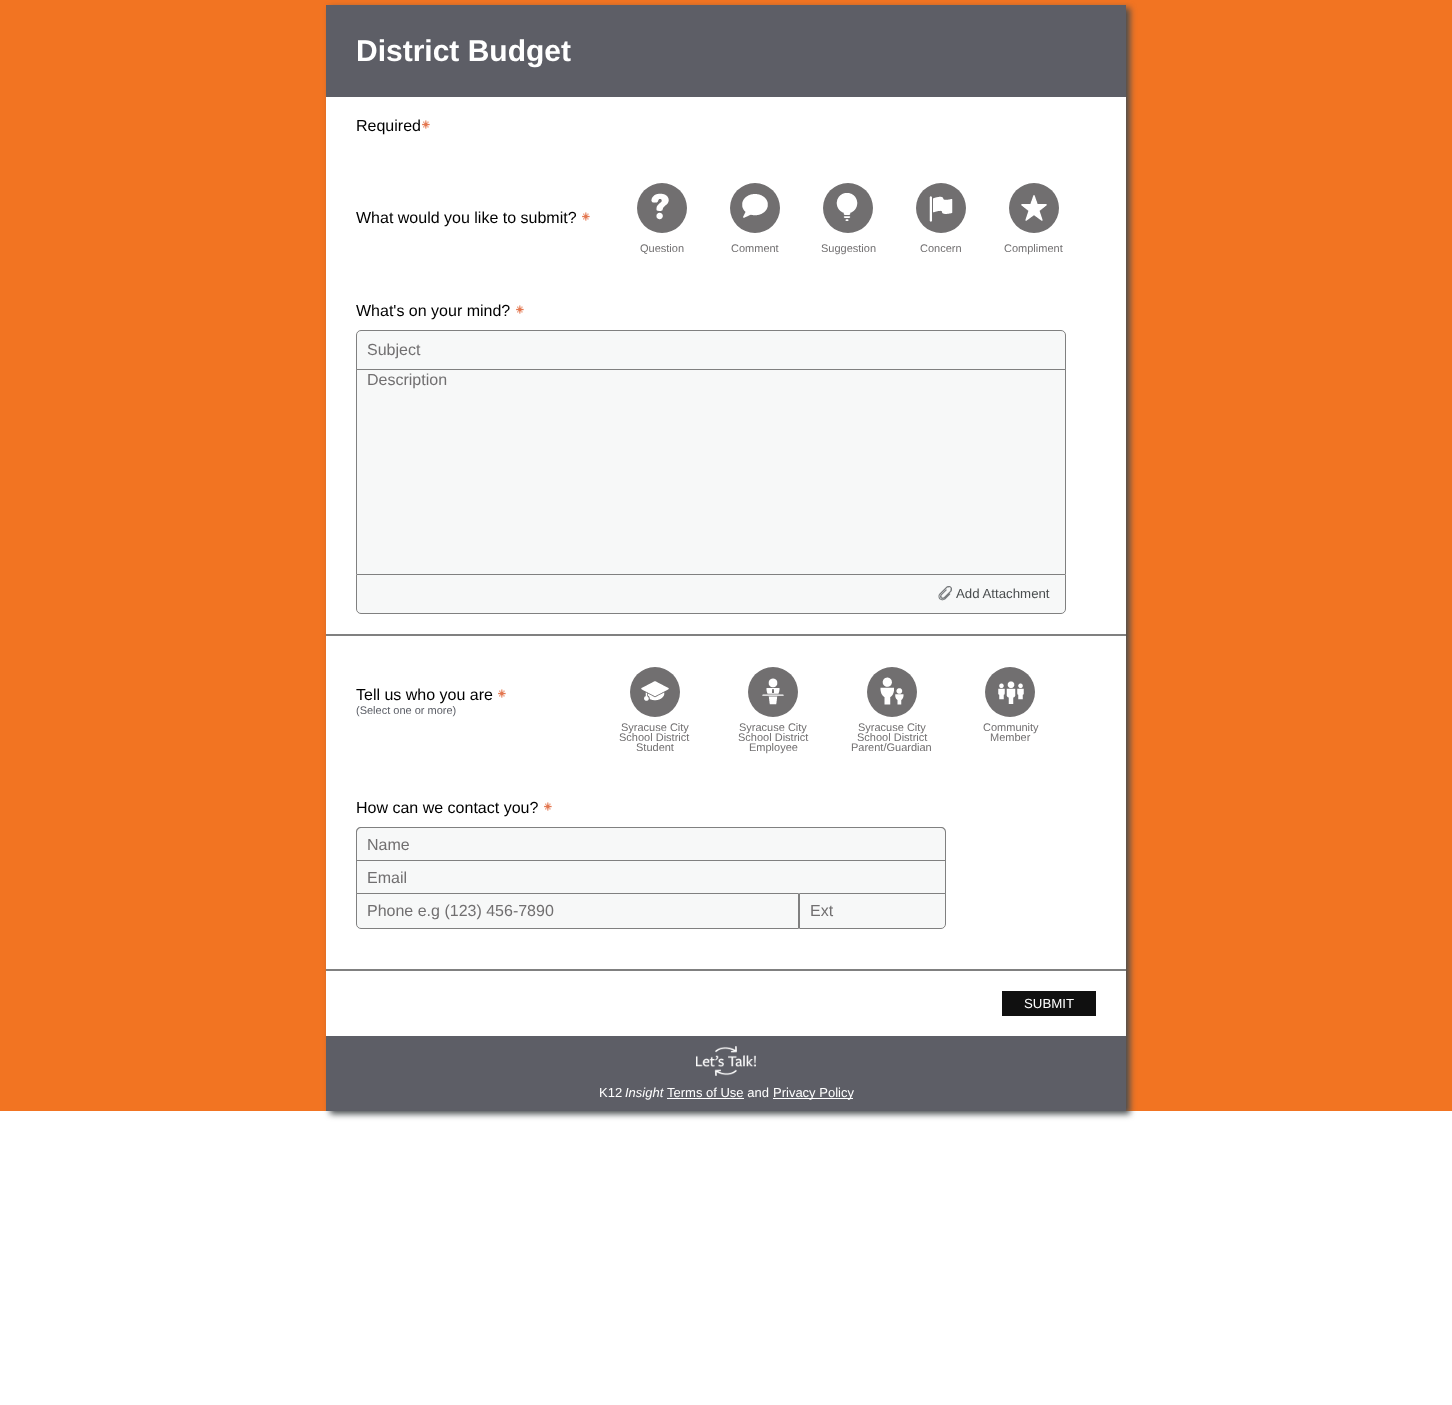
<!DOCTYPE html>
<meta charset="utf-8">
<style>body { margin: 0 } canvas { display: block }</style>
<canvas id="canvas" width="1452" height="1405"></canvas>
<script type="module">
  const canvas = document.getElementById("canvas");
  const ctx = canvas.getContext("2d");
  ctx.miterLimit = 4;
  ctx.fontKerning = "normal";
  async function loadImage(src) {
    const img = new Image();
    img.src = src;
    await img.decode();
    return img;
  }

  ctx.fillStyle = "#ffffff";
  ctx.fillRect(0, 0, 1452, 1405);
  ctx.fillStyle = "#f27422";
  ctx.fillRect(0, 0, 1452, 1111);
  ctx.fillStyle = "#484d4f";
  ctx.filter = "blur(3px)";
  ctx.beginPath();
  ctx.rect(330, 8, 800, 1106);
  ctx.fill();
  ctx.filter = "none";
  ctx.fillStyle = "#ffffff";
  ctx.fillRect(326, 97, 800, 939);
  ctx.fillStyle = "#5d5e66";
  ctx.fillRect(326, 5, 800, 92);
  ctx.font = "bold 30px Liberation Sans";
  ctx.fillStyle = "#ffffff";
  ctx.fillText("District Budget", 356, 61);
  ctx.font = "16px Liberation Sans";
  ctx.fillStyle = "#000000";
  ctx.fillText("Required", 356, 131);
  ctx.drawImage(await loadImage("img1.png"), 422, 120, 8, 9);
  ctx.fillText("What would you like to submit?", 356, 223);
  ctx.drawImage(await loadImage("img2.png"), 582, 212, 8, 9);
  ctx.fillStyle = "#716f70";
  ctx.beginPath();
  ctx.arc(662, 208, 25, 0, Math.PI * 2);
  ctx.fill();
  ctx.drawImage(await loadImage("img3.png"), 651, 193, 18, 27);
  ctx.font = "11px Liberation Sans";
  ctx.fillText("Question", 640, 252);
  ctx.beginPath();
  ctx.arc(755, 208, 25, 0, Math.PI * 2);
  ctx.fill();
  ctx.drawImage(await loadImage("img4.png"), 742, 194, 26, 24);
  ctx.fillText("Comment", 731, 252);
  ctx.beginPath();
  ctx.arc(848, 208, 25, 0, Math.PI * 2);
  ctx.fill();
  ctx.drawImage(await loadImage("img5.png"), 836, 193, 22, 28);
  ctx.fillText("Suggestion", 821, 252);
  ctx.beginPath();
  ctx.arc(941, 208, 25, 0, Math.PI * 2);
  ctx.fill();
  ctx.drawImage(await loadImage("img6.png"), 929, 196, 24, 26);
  ctx.fillText("Concern", 920, 252);
  ctx.beginPath();
  ctx.arc(1034, 208, 25, 0, Math.PI * 2);
  ctx.fill();
  ctx.drawImage(await loadImage("img7.png"), 1021, 195, 26, 26);
  ctx.fillText("Compliment", 1004, 252);
  ctx.font = "16px Liberation Sans";
  ctx.fillStyle = "#000000";
  ctx.fillText("What's on your mind?", 356, 316);
  ctx.drawImage(await loadImage("img2.png"), 516, 305, 8, 9);
  ctx.fillStyle = "#808080";
  ctx.fillRect(1065, 368, 1, 206);
  ctx.fillRect(356, 368, 1, 206);
  ctx.fillStyle = "#f7f8f8";
  ctx.beginPath();
  ctx.roundRect(356.5, 330.5, 709, 39, [4.5, 4.5, 0, 0]);
  ctx.fill();
  ctx.strokeStyle = "#808080";
  ctx.stroke();
  ctx.fillStyle = "#716f70";
  ctx.fillText("Subject", 367, 355);
  ctx.fillStyle = "#f7f8f8";
  ctx.fillRect(357, 370, 708, 204);
  ctx.fillStyle = "#716f70";
  ctx.fillText("Description", 367, 385);
  ctx.fillStyle = "#f7f8f8";
  ctx.beginPath();
  ctx.roundRect(356.5, 574.5, 709, 39, [0, 0, 4.5, 4.5]);
  ctx.fill();
  ctx.stroke();
  ctx.drawImage(await loadImage("img8.png"), 938, 586, 14, 15);
  ctx.font = "13.25px Liberation Sans";
  ctx.fillStyle = "#494d4e";
  ctx.fillText("Add Attachment", 956, 598);
  ctx.fillStyle = "#808080";
  ctx.fillRect(326, 634, 800, 2);
  ctx.font = "16px Liberation Sans";
  ctx.fillStyle = "#000000";
  ctx.fillText("Tell us who you are", 356, 700);
  ctx.drawImage(await loadImage("img1.png"), 498, 689, 8, 9);
  ctx.font = "11px Liberation Sans";
  ctx.fillStyle = "#5a5d65";
  ctx.fillText("(Select one or more)", 356, 714);
  ctx.fillStyle = "#716f70";
  ctx.beginPath();
  ctx.arc(655, 692, 25, 0, Math.PI * 2);
  ctx.fill();
  ctx.drawImage(await loadImage("img9.png"), 641, 681, 28, 20);
  ctx.fillText("Syracuse City", 621, 731);
  ctx.fillText("School District", 619, 741);
  ctx.fillText("Student", 636, 751);
  ctx.beginPath();
  ctx.arc(773, 692, 25, 0, Math.PI * 2);
  ctx.fill();
  ctx.drawImage(await loadImage("img10.png"), 762, 678, 22, 27);
  ctx.fillText("Syracuse City", 739, 731);
  ctx.fillText("School District", 738, 741);
  ctx.fillText("Employee", 749, 751);
  ctx.beginPath();
  ctx.arc(892, 692, 25, 0, Math.PI * 2);
  ctx.fill();
  ctx.drawImage(await loadImage("img11.png"), 880, 677, 24, 28);
  ctx.fillText("Syracuse City", 858, 731);
  ctx.fillText("School District", 857, 741);
  ctx.fillText("Parent/Guardian", 851, 751);
  ctx.beginPath();
  ctx.arc(1010, 692, 25, 0, Math.PI * 2);
  ctx.fill();
  ctx.drawImage(await loadImage("img12.png"), 998, 681, 26, 23);
  ctx.fillText("Community", 983, 731);
  ctx.fillText("Member", 990, 741);
  ctx.font = "16px Liberation Sans";
  ctx.fillStyle = "#000000";
  ctx.fillText("How can we contact you?", 356, 813);
  ctx.drawImage(await loadImage("img2.png"), 544, 802, 8, 9);
  ctx.fillStyle = "#f7f8f8";
  ctx.beginPath();
  ctx.roundRect(356, 827, 590, 35, [5, 5, 0, 0]);
  ctx.fill();
  ctx.fillStyle = "#808080";
  ctx.beginPath();
  ctx.moveTo(361, 827);
  ctx.lineTo(941, 827);
  ctx.bezierCurveTo(944, 827, 946, 829, 946, 832);
  ctx.lineTo(946, 862);
  ctx.lineTo(356, 862);
  ctx.lineTo(356, 832);
  ctx.bezierCurveTo(356, 829, 358, 827, 361, 827);
  ctx.closePath();
  ctx.moveTo(361, 828);
  ctx.lineTo(941, 828);
  ctx.bezierCurveTo(943, 828, 945, 830, 945, 832);
  ctx.lineTo(945, 862);
  ctx.lineTo(357, 862);
  ctx.lineTo(357, 832);
  ctx.bezierCurveTo(357, 830, 359, 828, 361, 828);
  ctx.closePath();
  ctx.fill("evenodd");
  ctx.fillStyle = "#716f70";
  ctx.fillText("Name", 367, 850);
  ctx.fillStyle = "#f7f8f8";
  ctx.fillRect(357, 862, 588, 31);
  ctx.fillStyle = "#808080";
  ctx.fillRect(356, 860, 590, 1);
  ctx.fillRect(945, 860, 1, 35);
  ctx.fillRect(356, 860, 1, 35);
  ctx.fillStyle = "#716f70";
  ctx.fillText("Email", 367, 883);
  ctx.fillStyle = "#f7f8f8";
  ctx.beginPath();
  ctx.roundRect(356.5, 893.5, 442, 35, [0, 0, 0, 4.5]);
  ctx.fill();
  ctx.stroke();
  ctx.fillStyle = "#716f70";
  ctx.fillText("Phone e.g (123) 456-7890", 367, 916);
  ctx.fillStyle = "#f7f8f8";
  ctx.beginPath();
  ctx.roundRect(799.5, 893.5, 146, 35, [0, 0, 4.5, 0]);
  ctx.fill();
  ctx.stroke();
  ctx.fillStyle = "#716f70";
  ctx.fillText("Ext", 810, 916);
  ctx.fillStyle = "#808080";
  ctx.fillRect(326, 969, 800, 2);
  ctx.fillStyle = "#101010";
  ctx.fillRect(1002, 991, 94, 25);
  ctx.font = "13.25px Liberation Sans";
  ctx.fillStyle = "#ffffff";
  ctx.fillText("SUBMIT", 1024, 1008);
  ctx.fillStyle = "#5d5e66";
  ctx.fillRect(326, 1036, 800, 75);
  ctx.drawImage(await loadImage("img13.png"), 696, 1046, 60, 30);
  ctx.font = "13px Liberation Sans";
  ctx.fillStyle = "#ffffff";
  ctx.fillText("K12", 599, 1097);
  ctx.font = "italic 13px Liberation Sans";
  ctx.fillText("Insight", 625, 1097);
  ctx.fillRect(667, 1098, 77, 1);
  ctx.font = "13px Liberation Sans";
  ctx.fillText("Terms of Use and", 667, 1097);
  ctx.fillRect(773, 1098, 80, 1);
  ctx.fillText("Privacy Policy", 773, 1097);
</script>
